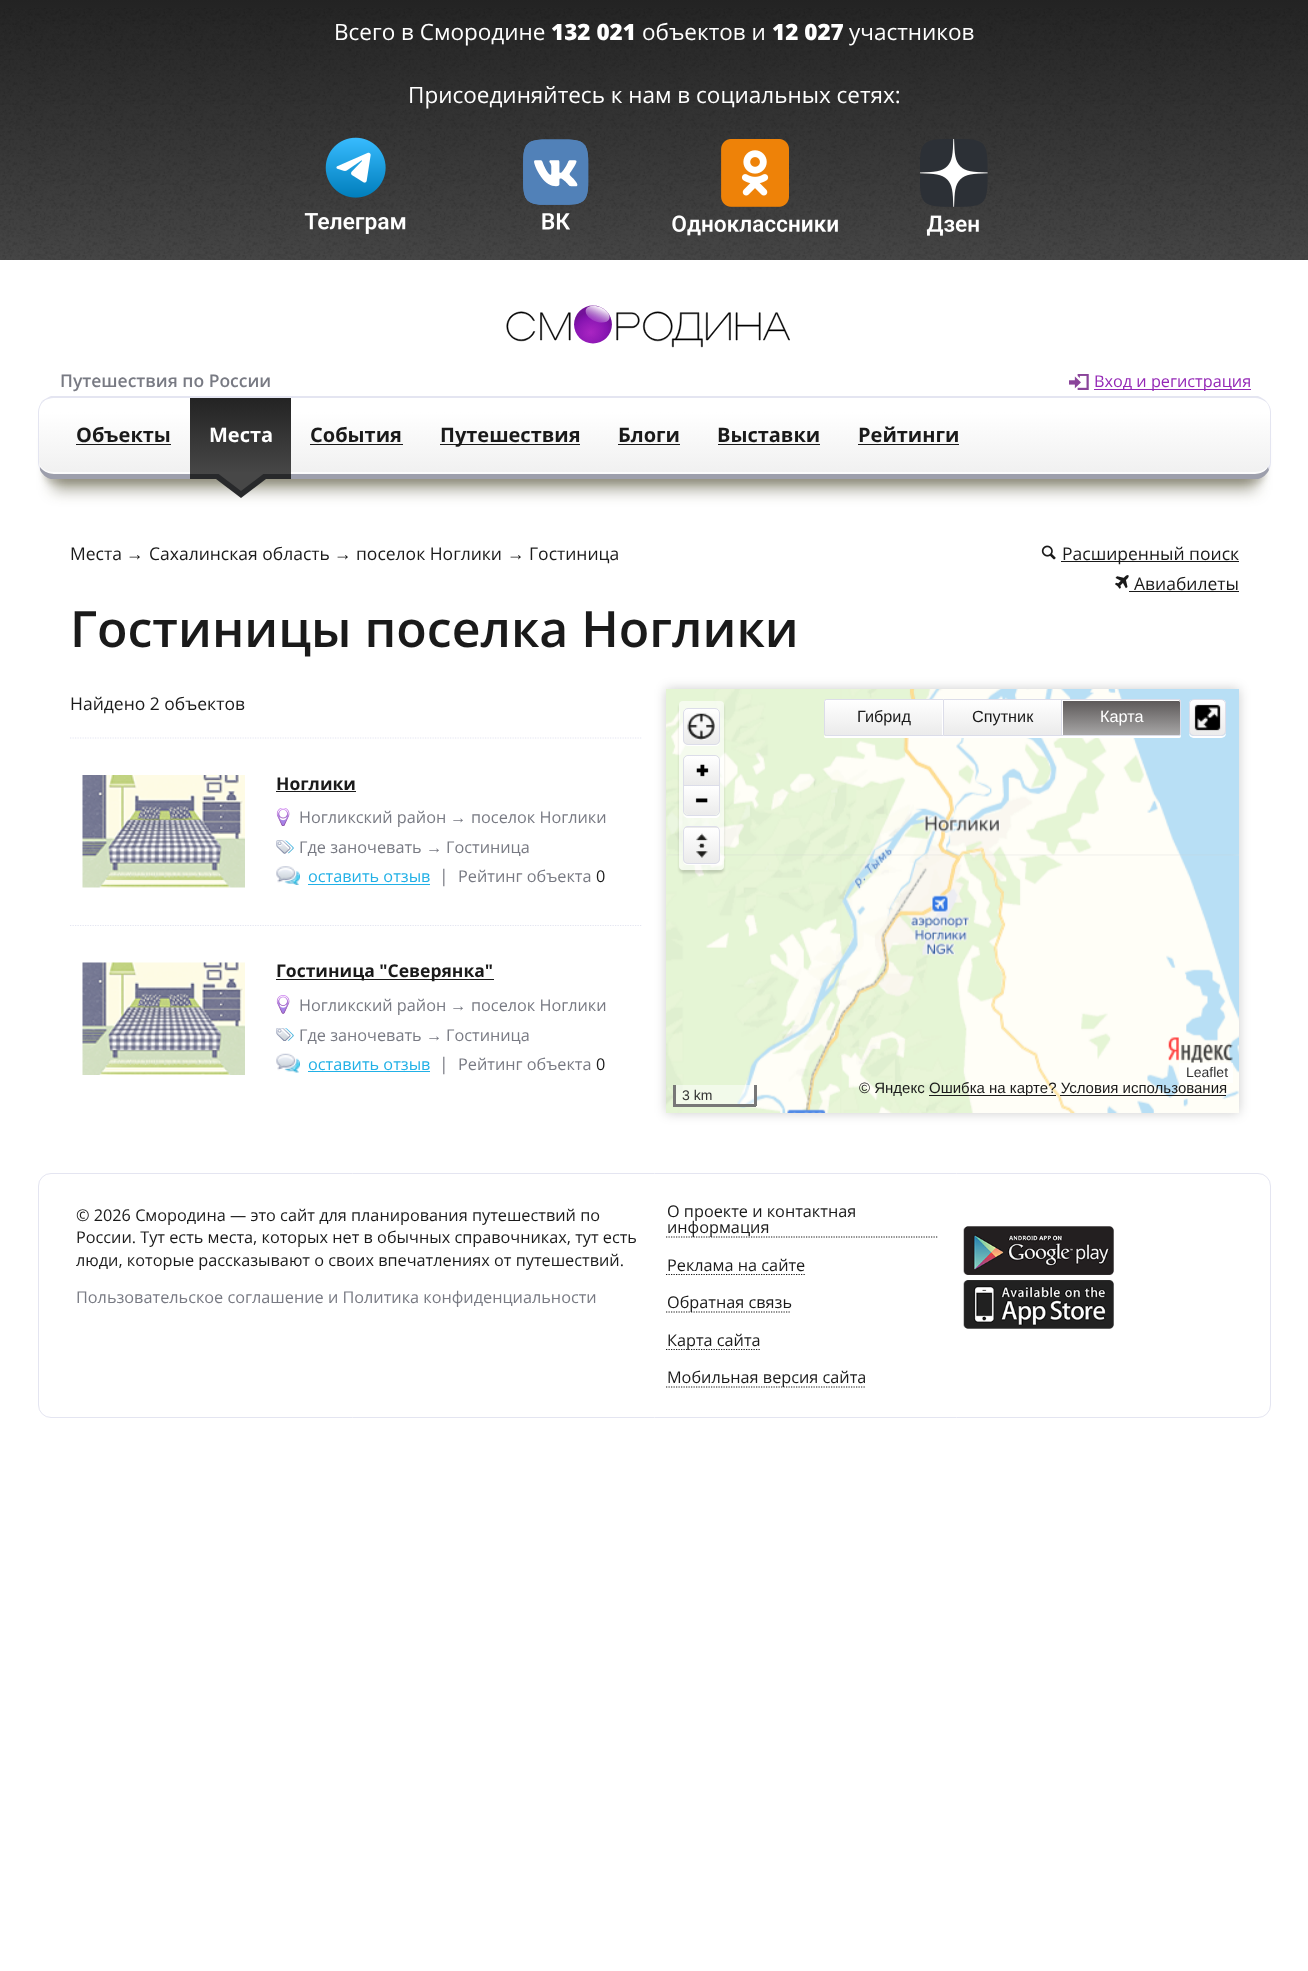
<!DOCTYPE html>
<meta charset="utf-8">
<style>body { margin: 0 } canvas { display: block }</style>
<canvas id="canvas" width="1308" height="1971"></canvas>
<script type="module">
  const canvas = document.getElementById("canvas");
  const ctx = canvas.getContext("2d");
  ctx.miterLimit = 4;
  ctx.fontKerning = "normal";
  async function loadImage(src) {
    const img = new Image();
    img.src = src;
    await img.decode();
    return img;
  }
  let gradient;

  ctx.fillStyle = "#ffffff";
  ctx.fillRect(0, 0, 1308, 1971);
  gradient = ctx.createLinearGradient(654, 260, 654, 0);
  gradient.addColorStop(0, "#474747");
  gradient.addColorStop(1, "#232323");
  ctx.fillStyle = gradient;
  ctx.fillRect(0, 0, 1308, 260);
  ctx.drawImage(await loadImage("img1.png"), 0, 8, 1308, 252);
  ctx.font = "22.5px Open Sans";
  ctx.fillStyle = "#ffffff";
  ctx.fillText("Всего в Смородине", 334, 40);
  ctx.font = "800 22.5px Open Sans";
  ctx.fillText("132 021", 551, 40);
  ctx.font = "22.5px Open Sans";
  ctx.fillText("объектов и", 642, 40);
  ctx.font = "800 22.5px Open Sans";
  ctx.fillText("12 027", 772, 40);
  ctx.font = "22.5px Open Sans";
  ctx.fillText("участников", 849, 40);
  ctx.fillText("Присоединяйтесь к нам в социальных сетях:", 408, 103);
  ctx.drawImage(await loadImage("img2.png"), 304, 137, 102, 97);
  ctx.drawImage(await loadImage("img3.png"), 523, 139, 66, 91);
  ctx.drawImage(await loadImage("img4.png"), 672, 139, 166, 97);
  ctx.drawImage(await loadImage("img5.png"), 920, 139, 68, 97);
  ctx.drawImage(await loadImage("img6.png"), 506, 305, 284, 43);
  ctx.font = "600 17.5px Open Sans";
  ctx.fillStyle = "#787a83";
  ctx.fillText("Путешествия по России", 60, 387);
  ctx.drawImage(await loadImage("img7.png"), 1069, 374, 20, 16);
  ctx.fillStyle = "#9428b6";
  ctx.fillRect(1094, 389, 157, 1);
  ctx.font = "16.25px Open Sans";
  ctx.fillText("Вход и регистрация", 1094, 387);
  ctx.fillStyle = "rgba(43, 41, 7, 0.4)";
  ctx.filter = "blur(7.5px)";
  ctx.beginPath();
  ctx.roundRect(53, 438, 1203, 52, 1);
  ctx.fill();
  ctx.filter = "none";
  ctx.fillStyle = "rgba(43, 41, 7, 0.2)";
  ctx.filter = "blur(3px)";
  ctx.beginPath();
  ctx.roundRect(44, 414, 1221, 70, 10);
  ctx.fill();
  ctx.filter = "none";
  gradient = ctx.createLinearGradient(654, 397, 654, 474);
  gradient.addColorStop(0.2, "#ffffff");
  gradient.addColorStop(1, "#f0f0f0");
  ctx.fillStyle = gradient;
  ctx.beginPath();
  ctx.moveTo(54, 398);
  ctx.lineTo(1255, 398);
  ctx.bezierCurveTo(1263, 398, 1270, 404, 1270, 412);
  ctx.lineTo(1270, 462);
  ctx.bezierCurveTo(1270, 469, 1263, 474, 1255, 474);
  ctx.lineTo(54, 474);
  ctx.bezierCurveTo(45, 474, 39, 469, 39, 462);
  ctx.lineTo(39, 412);
  ctx.bezierCurveTo(39, 404, 45, 398, 54, 398);
  ctx.closePath();
  ctx.fill();
  ctx.fillStyle = "rgba(255, 255, 255, 0.75)";
  ctx.beginPath();
  ctx.moveTo(39, 409);
  ctx.lineTo(39, 462);
  ctx.bezierCurveTo(39, 469, 45, 474, 54, 474);
  ctx.lineTo(1255, 474);
  ctx.bezierCurveTo(1263, 474, 1270, 469, 1270, 462);
  ctx.lineTo(1270, 461);
  ctx.bezierCurveTo(1270, 467, 1263, 472, 1255, 472);
  ctx.lineTo(54, 472);
  ctx.bezierCurveTo(45, 472, 39, 467, 39, 461);
  ctx.closePath();
  ctx.fill();
  ctx.fillStyle = "#e4e5f1";
  ctx.beginPath();
  ctx.moveTo(54, 398);
  ctx.bezierCurveTo(50, 398, 46, 399, 43, 402);
  ctx.lineTo(42, 401);
  ctx.bezierCurveTo(45, 399, 48, 397, 51, 396);
  ctx.lineTo(1258, 396);
  ctx.bezierCurveTo(1261, 397, 1264, 399, 1266, 401);
  ctx.lineTo(1266, 402);
  ctx.bezierCurveTo(1263, 400, 1259, 398, 1255, 398);
  ctx.closePath();
  ctx.fill();
  ctx.beginPath();
  ctx.moveTo(1266, 401);
  ctx.bezierCurveTo(1269, 404, 1271, 408, 1271, 412);
  ctx.lineTo(1271, 462);
  ctx.bezierCurveTo(1271, 465, 1270, 468, 1269, 470);
  ctx.lineTo(1268, 467);
  ctx.bezierCurveTo(1269, 466, 1270, 464, 1270, 462);
  ctx.lineTo(1270, 412);
  ctx.bezierCurveTo(1270, 408, 1268, 404, 1266, 402);
  ctx.closePath();
  ctx.fill();
  ctx.fillStyle = "#9d9fac";
  ctx.beginPath();
  ctx.moveTo(51, 479);
  ctx.bezierCurveTo(46, 478, 42, 474, 40, 470);
  ctx.lineTo(40, 467);
  ctx.bezierCurveTo(43, 471, 48, 474, 54, 474);
  ctx.lineTo(1255, 474);
  ctx.bezierCurveTo(1261, 474, 1266, 471, 1268, 467);
  ctx.lineTo(1269, 470);
  ctx.bezierCurveTo(1267, 474, 1263, 478, 1258, 479);
  ctx.closePath();
  ctx.fill();
  ctx.fillStyle = "#e4e5f1";
  ctx.beginPath();
  ctx.moveTo(40, 470);
  ctx.bezierCurveTo(39, 467, 38, 465, 38, 462);
  ctx.lineTo(38, 412);
  ctx.bezierCurveTo(38, 408, 40, 404, 42, 401);
  ctx.lineTo(43, 402);
  ctx.bezierCurveTo(41, 404, 39, 408, 39, 412);
  ctx.lineTo(39, 462);
  ctx.bezierCurveTo(39, 464, 39, 466, 40, 467);
  ctx.closePath();
  ctx.fill();
  ctx.font = "bold 20px Open Sans";
  ctx.fillStyle = "#1a1a1a";
  ctx.fillText("Объекты", 76, 442);
  ctx.fillRect(76, 444, 95, 1);
  gradient = ctx.createLinearGradient(241, 474, 241, 398);
  gradient.addColorStop(0, "#474747");
  gradient.addColorStop(1, "#232323");
  ctx.fillStyle = gradient;
  ctx.fillRect(190, 398, 101, 76);
  ctx.fillStyle = "#ffffff";
  ctx.fillText("Места", 209, 442);
  ctx.fillStyle = "#28292b";
  ctx.fillRect(190, 474, 101, 5);
  ctx.beginPath();
  ctx.moveTo(216, 479);
  ctx.lineTo(266, 479);
  ctx.lineTo(241, 498);
  ctx.closePath();
  ctx.fill();
  ctx.fillStyle = "#474747";
  ctx.beginPath();
  ctx.moveTo(216, 472);
  ctx.lineTo(266, 472);
  ctx.lineTo(241, 491);
  ctx.closePath();
  ctx.fill();
  ctx.fillStyle = "#1a1a1a";
  ctx.fillText("События", 310, 442);
  ctx.fillRect(310, 444, 93, 1);
  ctx.fillRect(440, 444, 140, 1);
  ctx.fillText("Путешествия", 440, 442);
  ctx.fillText("Блоги", 618, 442);
  ctx.fillRect(618, 444, 62, 1);
  ctx.fillText("Выставки", 717, 442);
  ctx.fillRect(718, 444, 102, 1);
  ctx.fillText("Рейтинги", 858, 442);
  ctx.fillRect(858, 444, 101, 1);
  ctx.font = "17.5px Open Sans";
  ctx.fillText("Места", 70, 560);
  ctx.font = "17.5px Liberation Sans";
  ctx.fillText("→", 126, 560);
  ctx.font = "17.5px Open Sans";
  ctx.fillText("Сахалинская область", 149, 560);
  ctx.font = "17.5px Liberation Sans";
  ctx.fillText("→", 334, 560);
  ctx.font = "17.5px Open Sans";
  ctx.fillText("поселок Ноглики", 356, 560);
  ctx.font = "17.5px Liberation Sans";
  ctx.fillText("→", 507, 560);
  ctx.font = "17.5px Open Sans";
  ctx.fillText("Гостиница", 529, 560);
  ctx.drawImage(await loadImage("img8.png"), 1041, 545, 15, 15);
  ctx.fillRect(1061, 561, 178, 1);
  ctx.fillText("Расширенный поиск", 1062, 560);
  ctx.drawImage(await loadImage("img9.png"), 1115, 575, 14, 14);
  ctx.fillText("Авиабилеты", 1134, 590);
  ctx.fillRect(1129, 591, 110, 1);
  ctx.font = "600 50px Open Sans";
  ctx.fillText("Гостиницы поселка Ноглики", 70, 647);
  ctx.font = "17.5px Open Sans";
  ctx.fillText("Найдено 2 объектов", 70, 710);
  ctx.beginPath();
  ctx.moveTo(70, 738);
  ctx.lineTo(642.5, 738);
  ctx.strokeStyle = "#e4e5f1";
  ctx.lineWidth = 1.2;
  ctx.setLineDash([1.25, 1.25]);
  ctx.stroke();
  ctx.drawImage(await loadImage("img10.png"), 82, 775, 163, 113);
  ctx.font = "bold 17.5px Open Sans";
  ctx.fillText("Ноглики", 276, 790);
  ctx.fillRect(276, 791, 80, 1);
  ctx.drawImage(await loadImage("img11.png"), 276, 808, 14, 18);
  ctx.font = "16.25px Open Sans";
  ctx.fillStyle = "#787a83";
  ctx.fillText("Ногликский район", 299, 823);
  ctx.font = "16.25px Liberation Sans";
  ctx.fillText("→", 450, 823);
  ctx.font = "16.25px Open Sans";
  ctx.fillText("поселок Ноглики", 471, 823);
  ctx.drawImage(await loadImage("img12.png"), 276, 840, 18, 14);
  ctx.fillText("Где заночевать", 299, 853);
  ctx.font = "16.25px Liberation Sans";
  ctx.fillText("→", 426, 853);
  ctx.font = "16.25px Open Sans";
  ctx.fillText("Гостиница", 446, 853);
  ctx.drawImage(await loadImage("img13.png"), 276, 866, 24, 19);
  ctx.fillStyle = "#21b0e6";
  ctx.fillText("оставить отзыв", 308, 882);
  ctx.fillRect(308, 884, 122, 1);
  ctx.font = "17.5px Open Sans";
  ctx.fillStyle = "#787a83";
  ctx.fillText("|", 439, 882);
  ctx.font = "16.25px Open Sans";
  ctx.fillText("Рейтинг объекта", 458, 882);
  ctx.fillStyle = "#1a1a1a";
  ctx.fillText("0", 596, 882);
  ctx.beginPath();
  ctx.moveTo(70, 925.5);
  ctx.lineTo(642.5, 925.5);
  ctx.stroke();
  ctx.drawImage(await loadImage("img14.png"), 82, 962, 163, 113);
  ctx.fillRect(276, 979, 218, 1);
  ctx.font = "bold 17.5px Open Sans";
  ctx.fillText("Гостиница \"Северянка\"", 276, 977);
  ctx.drawImage(await loadImage("img15.png"), 276, 995, 14, 19);
  ctx.font = "16.25px Open Sans";
  ctx.fillStyle = "#787a83";
  ctx.fillText("Ногликский район", 299, 1011);
  ctx.font = "16.25px Liberation Sans";
  ctx.fillText("→", 450, 1011);
  ctx.font = "16.25px Open Sans";
  ctx.fillText("поселок Ноглики", 471, 1011);
  ctx.drawImage(await loadImage("img16.png"), 276, 1028, 18, 13);
  ctx.fillText("Где заночевать", 299, 1041);
  ctx.font = "16.25px Liberation Sans";
  ctx.fillText("→", 426, 1041);
  ctx.font = "16.25px Open Sans";
  ctx.fillText("Гостиница", 446, 1041);
  ctx.drawImage(await loadImage("img17.png"), 276, 1053, 24, 20);
  ctx.fillStyle = "#21b0e6";
  ctx.fillText("оставить отзыв", 308, 1070);
  ctx.fillRect(308, 1071, 122, 1);
  ctx.font = "17.5px Open Sans";
  ctx.fillStyle = "#787a83";
  ctx.fillText("|", 439, 1070);
  ctx.font = "16.25px Open Sans";
  ctx.fillText("Рейтинг объекта", 458, 1070);
  ctx.fillStyle = "#1a1a1a";
  ctx.fillText("0", 596, 1070);
  ctx.fillStyle = "rgba(0, 0, 0, 0.2)";
  ctx.filter = "blur(6px)";
  ctx.beginPath();
  ctx.rect(666, 689, 573, 424);
  ctx.fill();
  ctx.filter = "none";
  ctx.drawImage(await loadImage("img18.png"), 666, 689, 174, 167);
  ctx.drawImage(await loadImage("img19.png"), 840, 689, 320, 167);
  ctx.drawImage(await loadImage("img20.png"), 1160, 689, 79, 167);
  ctx.drawImage(await loadImage("img21.png"), 666, 855, 174, 258);
  ctx.drawImage(await loadImage("img22.png"), 840, 854, 320, 259);
  ctx.drawImage(await loadImage("img23.png"), 1160, 854, 79, 259);
  ctx.save();
  ctx.beginPath();
  ctx.moveTo(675, 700);
  ctx.lineTo(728, 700);
  ctx.lineTo(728, 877);
  ctx.lineTo(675, 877);
  ctx.closePath();
  ctx.moveTo(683, 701);
  ctx.lineTo(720, 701);
  ctx.bezierCurveTo(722, 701, 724, 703, 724, 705);
  ctx.lineTo(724, 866);
  ctx.bezierCurveTo(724, 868, 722, 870, 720, 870);
  ctx.lineTo(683, 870);
  ctx.bezierCurveTo(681, 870, 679, 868, 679, 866);
  ctx.lineTo(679, 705);
  ctx.bezierCurveTo(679, 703, 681, 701, 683, 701);
  ctx.closePath();
  ctx.clip("evenodd");
  ctx.fillStyle = "rgba(0, 0, 0, 0.13)";
  ctx.filter = "blur(1px)";
  ctx.beginPath();
  ctx.roundRect(679, 704, 45, 169, 4);
  ctx.fill();
  ctx.filter = "none";
  ctx.restore();
  ctx.fillStyle = "rgba(255, 255, 255, 0.6)";
  ctx.beginPath();
  ctx.roundRect(679, 701, 45, 169, 4);
  ctx.fill();
  ctx.fillStyle = "#ffffff";
  ctx.beginPath();
  ctx.moveTo(683.5, 742.5);
  ctx.bezierCurveTo(684, 744.5, 686, 746, 688, 746);
  ctx.lineTo(715, 746);
  ctx.bezierCurveTo(718, 746, 720, 744, 720, 741);
  ctx.lineTo(720, 740);
  ctx.bezierCurveTo(720, 743, 718, 745, 715, 745);
  ctx.lineTo(687.5, 745);
  ctx.bezierCurveTo(685.5, 745, 684, 744, 683.5, 742.5);
  ctx.closePath();
  ctx.fill();
  ctx.save();
  ctx.beginPath();
  ctx.roundRect(683, 708, 37, 37, 5);
  ctx.clip();
  gradient = ctx.createLinearGradient(701, 709, 701, 744);
  gradient.addColorStop(0, "#ffffff");
  gradient.addColorStop(1, "#ebebeb");
  ctx.fillStyle = gradient;
  ctx.fillRect(683, 709, 37, 35);
  ctx.restore();
  ctx.beginPath();
  ctx.roundRect(683.5, 708.5, 36, 36, 4.5);
  ctx.strokeStyle = "#dcdde9";
  ctx.lineWidth = 1;
  ctx.setLineDash([]);
  ctx.stroke();
  ctx.drawImage(await loadImage("img24.png"), 687, 713, 28, 27);
  ctx.beginPath();
  ctx.moveTo(683, 813.5);
  ctx.bezierCurveTo(683.5, 816, 685.5, 818, 688, 818);
  ctx.lineTo(715, 818);
  ctx.bezierCurveTo(718, 818, 720, 816, 720, 813);
  ctx.lineTo(720, 811);
  ctx.bezierCurveTo(720, 814, 718, 816, 715, 816);
  ctx.lineTo(687.5, 816);
  ctx.bezierCurveTo(685.5, 816, 684, 815, 683, 813.5);
  ctx.closePath();
  ctx.moveTo(688, 758);
  ctx.lineTo(715, 758);
  ctx.bezierCurveTo(717, 758, 719, 759, 719, 761);
  ctx.bezierCurveTo(719, 755.5, 715, 756, 710.5, 756);
  ctx.lineTo(692.5, 756);
  ctx.bezierCurveTo(688, 756, 684, 755.5, 684, 761);
  ctx.bezierCurveTo(684, 759, 685, 758, 688, 758);
  ctx.closePath();
  ctx.fill();
  ctx.beginPath();
  ctx.roundRect(683.5, 755.5, 36, 60, 4.5);
  ctx.stroke();
  gradient = ctx.createLinearGradient(701, 756, 701, 785);
  gradient.addColorStop(0, "#ffffff");
  gradient.addColorStop(1, "#ebebeb");
  ctx.fillStyle = gradient;
  ctx.beginPath();
  ctx.roundRect(684, 756, 35, 29, [5, 5, 0, 0]);
  ctx.fill();
  ctx.fillStyle = "#dcdde9";
  ctx.fillRect(684, 785, 35, 1);
  ctx.drawImage(await loadImage("img25.png"), 696, 764, 13, 13);
  gradient = ctx.createLinearGradient(701, 786, 701, 815);
  gradient.addColorStop(0, "#ffffff");
  gradient.addColorStop(1, "#ebebeb");
  ctx.fillStyle = gradient;
  ctx.beginPath();
  ctx.roundRect(684, 786, 35, 29, [0, 0, 5, 5]);
  ctx.fill();
  ctx.drawImage(await loadImage("img26.png"), 695, 798, 13, 5);
  ctx.fillStyle = "#ffffff";
  ctx.beginPath();
  ctx.moveTo(683, 861);
  ctx.bezierCurveTo(683.5, 863.5, 685.5, 865, 688, 865);
  ctx.lineTo(715, 865);
  ctx.bezierCurveTo(718, 865, 720, 863, 720, 860);
  ctx.lineTo(720, 859);
  ctx.bezierCurveTo(720, 861.5, 718, 864, 715, 864);
  ctx.lineTo(687.5, 864);
  ctx.bezierCurveTo(685.5, 864, 684, 862.5, 683, 861);
  ctx.closePath();
  ctx.fill();
  ctx.save();
  ctx.beginPath();
  ctx.roundRect(683, 826, 37, 38, 5);
  ctx.clip();
  gradient = ctx.createLinearGradient(701, 793, 701, 828);
  gradient.addColorStop(0, "#ffffff");
  gradient.addColorStop(1, "#ebebeb");
  ctx.fillStyle = gradient;
  ctx.fillRect(683, 826, 37, 2);
  gradient = ctx.createLinearGradient(701, 828, 701, 863);
  gradient.addColorStop(0, "#ffffff");
  gradient.addColorStop(1, "#ebebeb");
  ctx.fillStyle = gradient;
  ctx.fillRect(683, 828, 37, 35);
  ctx.restore();
  ctx.beginPath();
  ctx.roundRect(683.5, 826.5, 36, 37, 4.5);
  ctx.stroke();
  ctx.drawImage(await loadImage("img27.png"), 696, 833, 12, 25);
  ctx.beginPath();
  ctx.moveTo(824, 735);
  ctx.bezierCurveTo(824, 736, 824, 738, 826, 738);
  ctx.lineTo(944, 738);
  ctx.lineTo(944, 700);
  ctx.lineTo(944, 736);
  ctx.lineTo(826, 736);
  ctx.lineTo(825, 736);
  ctx.closePath();
  ctx.fill();
  gradient = ctx.createLinearGradient(884, 700, 884, 735);
  gradient.addColorStop(0, "#ffffff");
  gradient.addColorStop(1, "#ebebeb");
  ctx.fillStyle = gradient;
  ctx.fillRect(824, 700, 118, 35);
  ctx.fillStyle = "#ffffff";
  ctx.beginPath();
  ctx.moveTo(826, 701);
  ctx.lineTo(942, 701);
  ctx.lineTo(942, 735);
  ctx.lineTo(943, 735);
  ctx.lineTo(943, 700);
  ctx.lineTo(826, 700);
  ctx.bezierCurveTo(825, 700, 825, 701, 825, 702);
  ctx.closePath();
  ctx.fill();
  ctx.beginPath();
  ctx.roundRect(824.5, 699.5, 119, 36, [2, 0, 0, 2]);
  ctx.stroke();
  ctx.font = "16.25px Liberation Sans";
  ctx.fillStyle = "#1a1a1a";
  ctx.fillText("Гибрид", 857, 722);
  ctx.fillStyle = "#ffffff";
  ctx.beginPath();
  ctx.moveTo(944, 736);
  ctx.lineTo(944, 738);
  ctx.lineTo(1063, 738);
  ctx.lineTo(1063, 700);
  ctx.lineTo(1062, 700);
  ctx.lineTo(1062, 736);
  ctx.closePath();
  ctx.fill();
  gradient = ctx.createLinearGradient(1003, 700, 1003, 735);
  gradient.addColorStop(0, "#ffffff");
  gradient.addColorStop(1, "#ebebeb");
  ctx.fillStyle = gradient;
  ctx.fillRect(944, 700, 117, 35);
  ctx.fillStyle = "#dcdde9";
  ctx.fillRect(944, 699, 236, 1);
  ctx.fillRect(1061, 699, 1, 37);
  ctx.fillRect(944, 735, 119, 1);
  ctx.fillStyle = "#1a1a1a";
  ctx.fillText("Спутник", 972, 722);
  ctx.fillStyle = "#ffffff";
  ctx.beginPath();
  ctx.moveTo(1063, 736);
  ctx.lineTo(1063, 738);
  ctx.lineTo(1179, 738);
  ctx.bezierCurveTo(1181, 738, 1181, 736, 1181, 735);
  ctx.lineTo(1179, 736);
  ctx.closePath();
  ctx.fill();
  gradient = ctx.createLinearGradient(1121, 700, 1121, 735);
  gradient.addColorStop(0, "#5b5757");
  gradient.addColorStop(1, "#a7a6a6");
  ctx.fillStyle = gradient;
  ctx.beginPath();
  ctx.roundRect(1063, 700, 117, 35, [0, 1, 1, 0]);
  ctx.fill();
  ctx.fillStyle = "#ffffff";
  ctx.beginPath();
  ctx.moveTo(1063, 700);
  ctx.lineTo(1063, 701);
  ctx.lineTo(1179, 701);
  ctx.lineTo(1180, 702);
  ctx.bezierCurveTo(1180, 701, 1180, 700, 1179, 700);
  ctx.closePath();
  ctx.fill();
  ctx.fillStyle = "#dcdde9";
  ctx.fillRect(1180, 700, 1, 35);
  ctx.fillRect(1063, 735, 117, 1);
  ctx.fillStyle = "#ffffff";
  ctx.fillText("Карта", 1100, 722);
  ctx.beginPath();
  ctx.moveTo(1189, 733);
  ctx.bezierCurveTo(1189, 738.5, 1194.5, 738, 1198.5, 738);
  ctx.lineTo(1216.5, 738);
  ctx.bezierCurveTo(1220.5, 738, 1226, 738.5, 1226, 733);
  ctx.bezierCurveTo(1225.5, 735, 1223.5, 736, 1221, 736);
  ctx.lineTo(1194, 736);
  ctx.bezierCurveTo(1191.5, 736, 1189.5, 735, 1189, 733);
  ctx.closePath();
  ctx.fill();
  ctx.save();
  ctx.beginPath();
  ctx.roundRect(1189, 699, 37, 37, 5);
  ctx.clip();
  gradient = ctx.createLinearGradient(1208, 700, 1208, 735);
  gradient.addColorStop(0, "#ffffff");
  gradient.addColorStop(1, "#ebebeb");
  ctx.fillStyle = gradient;
  ctx.fillRect(1189, 700, 37, 35);
  ctx.restore();
  ctx.beginPath();
  ctx.roundRect(1189.5, 699.5, 36, 36, 4.5);
  ctx.stroke();
  ctx.drawImage(await loadImage("img28.png"), 1194, 704, 27, 27);
  ctx.fillStyle = "rgba(255, 255, 255, 0.5)";
  ctx.fillRect(676, 1085, 78, 19);
  ctx.fillStyle = "#777777";
  ctx.fillRect(754, 1085, 3, 21);
  ctx.fillRect(673, 1104, 83, 3);
  ctx.fillRect(673, 1085, 3, 21);
  ctx.font = "14px Liberation Sans";
  ctx.fillStyle = "#333333";
  ctx.fillText("3 km", 682, 1100);
  ctx.drawImage(await loadImage("img29.png"), 1168, 1037, 65, 26);
  ctx.fillStyle = "#1a1a1a";
  ctx.fillRect(929, 1095, 127, 1);
  ctx.font = "15px Liberation Sans";
  ctx.fillText("Ошибка на карте? Условия использования", 929, 1093);
  ctx.fillStyle = "rgba(255, 255, 255, 0.7)";
  ctx.fillRect(1179, 1063, 54, 20);
  ctx.font = "14px Liberation Sans";
  ctx.fillStyle = "#333333";
  ctx.fillText("Leaflet", 1186, 1077);
  ctx.font = "15px Liberation Sans";
  ctx.fillStyle = "#1a1a1a";
  ctx.fillText("© Яндекс", 859, 1093);
  ctx.fillRect(1060, 1095, 166, 1);
  ctx.beginPath();
  ctx.roundRect(38.5, 1173.5, 1232, 244, 12.5);
  ctx.strokeStyle = "#e4e5f1";
  ctx.stroke();
  ctx.font = "16.25px Open Sans";
  ctx.fillText("© 2026 Смородина — это сайт для планирования путешествий по", 76, 1221);
  ctx.fillText("России. Тут есть места, которых нет в обычных справочниках, тут есть", 76, 1243);
  ctx.fillText("люди, которые рассказывают о своих впечатлениях от путешествий.", 76, 1266);
  ctx.fillStyle = "#787a83";
  ctx.fillText("Пользовательское соглашение и Политика конфиденциальности", 76, 1303);
  ctx.beginPath();
  ctx.moveTo(666, 1237);
  ctx.lineTo(937.5, 1237);
  ctx.strokeStyle = "#1a1a1a";
  ctx.lineWidth = 1.2;
  ctx.setLineDash([1.25, 1.25]);
  ctx.stroke();
  ctx.fillStyle = "#1a1a1a";
  ctx.fillText("О проекте и контактная", 667, 1217);
  ctx.fillText("информация", 667, 1233);
  ctx.beginPath();
  ctx.moveTo(666, 1274.5);
  ctx.lineTo(805, 1274.5);
  ctx.stroke();
  ctx.fillText("Реклама на сайте", 667, 1271);
  ctx.beginPath();
  ctx.moveTo(666, 1312);
  ctx.lineTo(791, 1312);
  ctx.stroke();
  ctx.fillText("Обратная связь", 667, 1308);
  ctx.beginPath();
  ctx.moveTo(666, 1349.5);
  ctx.lineTo(760, 1349.5);
  ctx.stroke();
  ctx.fillText("Карта сайта", 667, 1346);
  ctx.beginPath();
  ctx.moveTo(666, 1387);
  ctx.lineTo(866, 1387);
  ctx.stroke();
  ctx.fillText("Мобильная версия сайта", 667, 1383);
  ctx.drawImage(await loadImage("img30.png"), 963, 1226, 151, 49);
  ctx.drawImage(await loadImage("img31.png"), 963, 1280, 151, 49);
</script>
